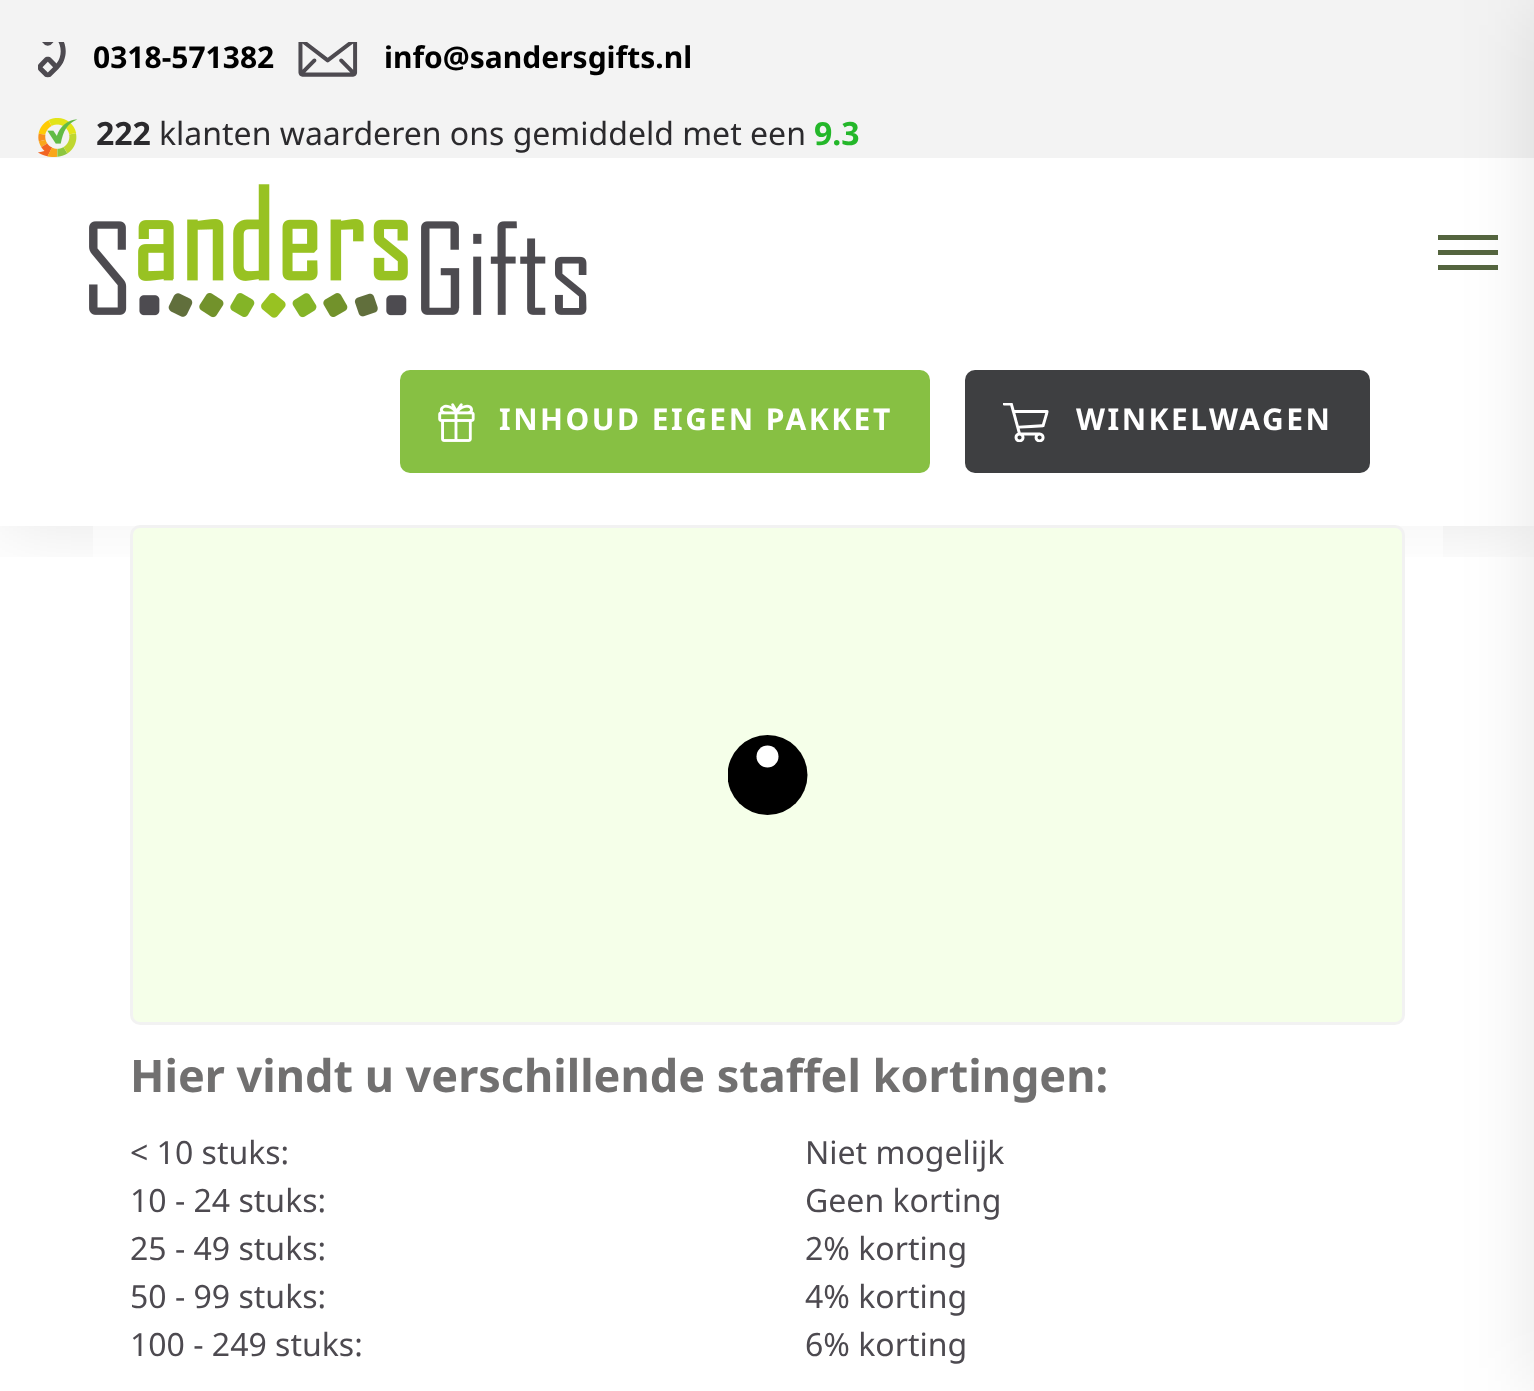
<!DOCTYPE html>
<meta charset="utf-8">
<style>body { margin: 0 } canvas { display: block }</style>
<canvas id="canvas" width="1534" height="1391"></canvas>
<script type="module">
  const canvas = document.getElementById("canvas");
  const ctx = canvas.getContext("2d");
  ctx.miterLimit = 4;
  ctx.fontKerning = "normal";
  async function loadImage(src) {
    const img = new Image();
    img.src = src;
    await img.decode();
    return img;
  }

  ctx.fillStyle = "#ffffff";
  ctx.fillRect(0, 0, 1534, 1391);
  ctx.save();
  ctx.beginPath();
  ctx.rect(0, 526, 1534, 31);
  ctx.clip();
  ctx.fillStyle = "rgba(0, 0, 0, 0.1)";
  ctx.filter = "blur(37.5px)";
  ctx.beginPath();
  ctx.rect(0, 0, 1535, 525);
  ctx.fill();
  ctx.filter = "none";
  ctx.restore();
  ctx.fillStyle = "#f3f3f3";
  ctx.fillRect(0, 0, 1534, 158);
  ctx.drawImage(await loadImage("img1.png"), 38, 42, 28, 36);
  ctx.font = "bold 30px Noto Sans";
  ctx.fillStyle = "#000000";
  ctx.fillText("0318-571382", 93, 68);
  ctx.drawImage(await loadImage("img2.png"), 298, 42, 60, 35);
  ctx.fillText("info@sandersgifts.nl", 384, 68);
  ctx.drawImage(await loadImage("img3.png"), 38, 118, 40, 39);
  ctx.font = "bold 32px Noto Sans";
  ctx.fillStyle = "#2b2a2d";
  ctx.fillText("222", 96, 145);
  ctx.font = "32px Noto Sans";
  ctx.fillText("klanten waarderen ons gemiddeld met een", 159, 145);
  ctx.font = "bold 32px Noto Sans";
  ctx.fillStyle = "#24b72a";
  ctx.fillText("9.3", 814, 145);
  ctx.fillStyle = "#ffffff";
  ctx.fillRect(0, 525, 1534, 1);
  ctx.fillStyle = "rgba(0, 0, 0, 0.1)";
  ctx.filter = "blur(37.5px)";
  ctx.beginPath();
  ctx.rect(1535, 0, 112, 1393);
  ctx.fill();
  ctx.filter = "none";
  ctx.drawImage(await loadImage("img4.png"), 89, 184, 498, 134);
  ctx.fillStyle = "#54643e";
  ctx.fillRect(1438, 250, 60, 5);
  ctx.fillRect(1438, 235, 60, 5);
  ctx.fillRect(1438, 265, 60, 5);
  ctx.fillStyle = "#87c043";
  ctx.beginPath();
  ctx.roundRect(400, 370, 530, 103, 10);
  ctx.fill();
  ctx.drawImage(await loadImage("img5.png"), 438, 403, 37, 39);
  ctx.letterSpacing = "2.5px";
  ctx.font = "bold 30px Noto Sans";
  ctx.fillStyle = "#ffffff";
  ctx.fillText("INHOUD EIGEN PAKKET", 499, 430);
  ctx.fillStyle = "#3e3f41";
  ctx.beginPath();
  ctx.roundRect(965, 370, 405, 103, 10);
  ctx.fill();
  ctx.drawImage(await loadImage("img6.png"), 1003, 403, 46, 40);
  ctx.fillStyle = "#ffffff";
  ctx.fillText("WINKELWAGEN", 1076, 430);
  ctx.fillStyle = "#ebffd3";
  ctx.beginPath();
  ctx.roundRect(131.5, 526.5, 1272, 497, 8.5);
  ctx.fill();
  ctx.strokeStyle = "#e5e5e5";
  ctx.lineWidth = 3;
  ctx.stroke();
  ctx.fillStyle = "rgba(255, 255, 255, 0.5)";
  ctx.fillRect(93, 525, 1350, 500);
  ctx.save();
  ctx.beginPath();
  ctx.rect(728, 735, 80, 80);
  ctx.clip();
  ctx.fillStyle = "#000000";
  ctx.beginPath();
  ctx.arc(767.5, 775, 40, 0, Math.PI * 2);
  ctx.fill();
  ctx.restore();
  ctx.fillStyle = "#ffffff";
  ctx.beginPath();
  ctx.arc(767.5, 756.5, 11, 0, Math.PI * 2);
  ctx.fill();
  ctx.letterSpacing = "0px";
  ctx.font = "bold 45px Noto Sans";
  ctx.fillStyle = "#717070";
  ctx.fillText("Hier vindt u verschillende staffel kortingen:", 130, 1092);
  ctx.font = "32px Noto Sans";
  ctx.fillStyle = "#4d4a50";
  ctx.fillText("< 10 stuks:", 130, 1164);
  ctx.fillText("10 - 24 stuks:", 130, 1212);
  ctx.fillText("25 - 49 stuks:", 130, 1260);
  ctx.fillText("50 - 99 stuks:", 130, 1308);
  ctx.fillText("100 - 249 stuks:", 130, 1356);
  ctx.fillText("Niet mogelijk", 805, 1164);
  ctx.fillText("Geen korting", 805, 1212);
  ctx.fillText("2% korting", 805, 1260);
  ctx.fillText("4% korting", 805, 1308);
  ctx.fillText("6% korting", 805, 1356);
</script>
